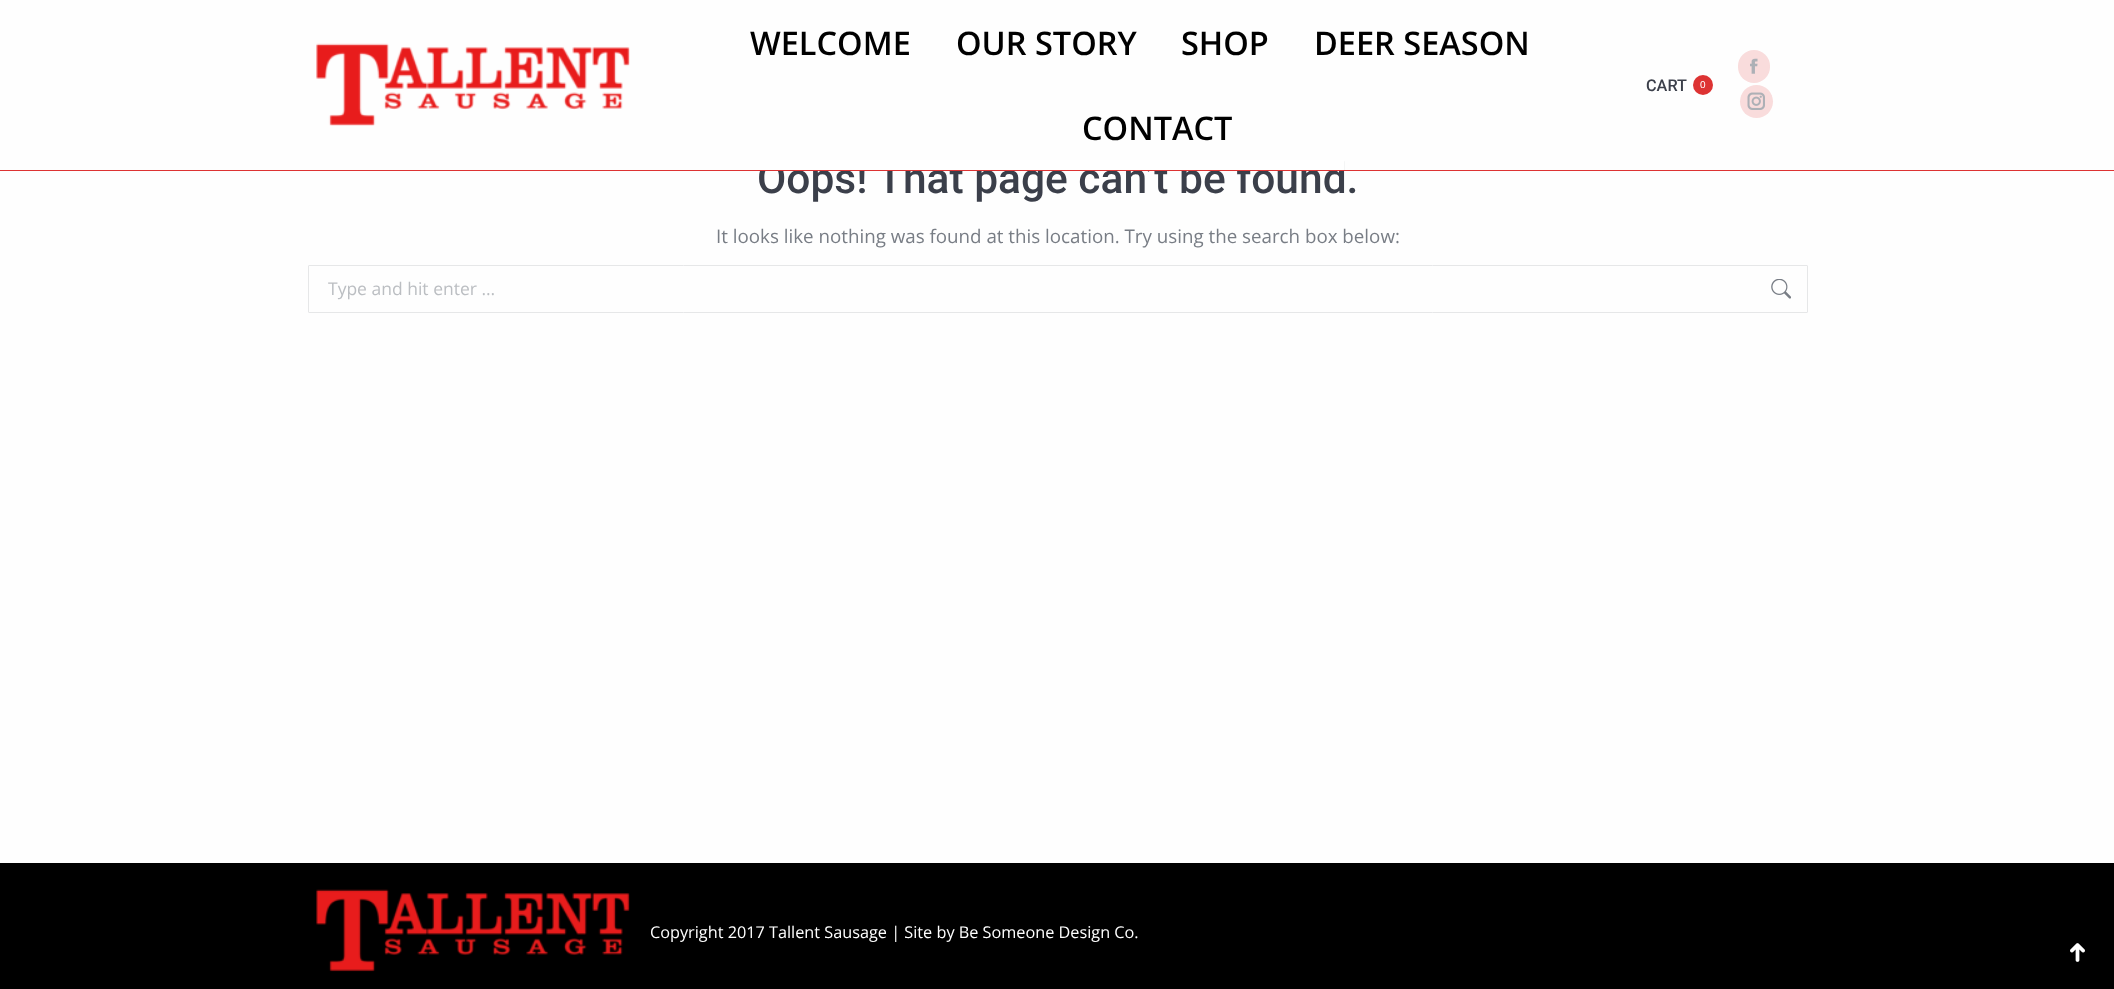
<!DOCTYPE html>
<meta charset="utf-8">
<style>body { margin: 0 } canvas { display: block }</style>
<canvas id="canvas" width="2114" height="989"></canvas>
<script type="module">
  const canvas = document.getElementById("canvas");
  const ctx = canvas.getContext("2d");
  ctx.miterLimit = 4;
  ctx.fontKerning = "normal";
  async function loadImage(src) {
    const img = new Image();
    img.src = src;
    await img.decode();
    return img;
  }

  ctx.fillStyle = "#fefefe";
  ctx.fillRect(0, 0, 2114, 989);
  ctx.font = "500 42.5px Roboto";
  ctx.fillStyle = "#3b3f4a";
  ctx.fillText("Oops! That page can’t be found.", 757, 193);
  ctx.fillStyle = "#ffffff";
  ctx.fillRect(760, 160, 584, 10);
  ctx.fillStyle = "#dd3333";
  ctx.fillRect(0, 170, 2114, 1);
  ctx.drawImage(await loadImage("img1.png"), 316, 43, 314, 83);
  ctx.font = "600 32.5px Open Sans";
  ctx.fillStyle = "#000000";
  ctx.fillText("WELCOME", 750, 55);
  ctx.fillText("OUR STORY", 956, 55);
  ctx.fillText("SHOP", 1181, 55);
  ctx.fillText("DEER SEASON", 1314, 55);
  ctx.fillText("CONTACT", 1082, 140);
  ctx.font = "500 16.25px Roboto";
  ctx.fillStyle = "#3b3f4a";
  ctx.fillText("CART", 1646, 91);
  ctx.fillStyle = "#dd3333";
  ctx.beginPath();
  ctx.arc(1703, 85, 10, 0, Math.PI * 2);
  ctx.fill();
  ctx.font = "10px Liberation Sans";
  ctx.fillStyle = "#ffffff";
  ctx.fillText("0", 1700, 88);
  ctx.fillStyle = "#f9dcdc";
  ctx.beginPath();
  ctx.roundRect(1738, 50, 32, 33, 16);
  ctx.fill();
  ctx.drawImage(await loadImage("img2.png"), 1750, 58, 8, 16);
  ctx.beginPath();
  ctx.arc(1756.5, 101.5, 16.5, 0, Math.PI * 2);
  ctx.fill();
  ctx.drawImage(await loadImage("img3.png"), 1747, 92, 18, 18);
  ctx.font = "18.75px Open Sans";
  ctx.fillStyle = "#787d85";
  ctx.fillText("It looks like nothing was found at this location. Try using the search box below:", 716, 243);
  ctx.beginPath();
  ctx.roundRect(308.5, 265.5, 1499, 47, 0.5);
  ctx.strokeStyle = "#e6e7e8";
  ctx.stroke();
  ctx.font = "17.5px Open Sans";
  ctx.fillStyle = "#bbbec2";
  ctx.fillText("Type and hit enter …", 328, 295);
  ctx.drawImage(await loadImage("img4.png"), 1771, 279, 20, 20);
  ctx.fillStyle = "#000000";
  ctx.fillRect(0, 863, 2114, 126);
  ctx.drawImage(await loadImage("img5.png"), 316, 889, 314, 83);
  ctx.font = "16.25px Open Sans";
  ctx.fillStyle = "#ffffff";
  ctx.fillText("Copyright 2017 Tallent Sausage | Site by Be Someone Design Co.", 650, 938);
  ctx.drawImage(await loadImage("img6.png"), 2070, 943, 15, 19);
</script>
